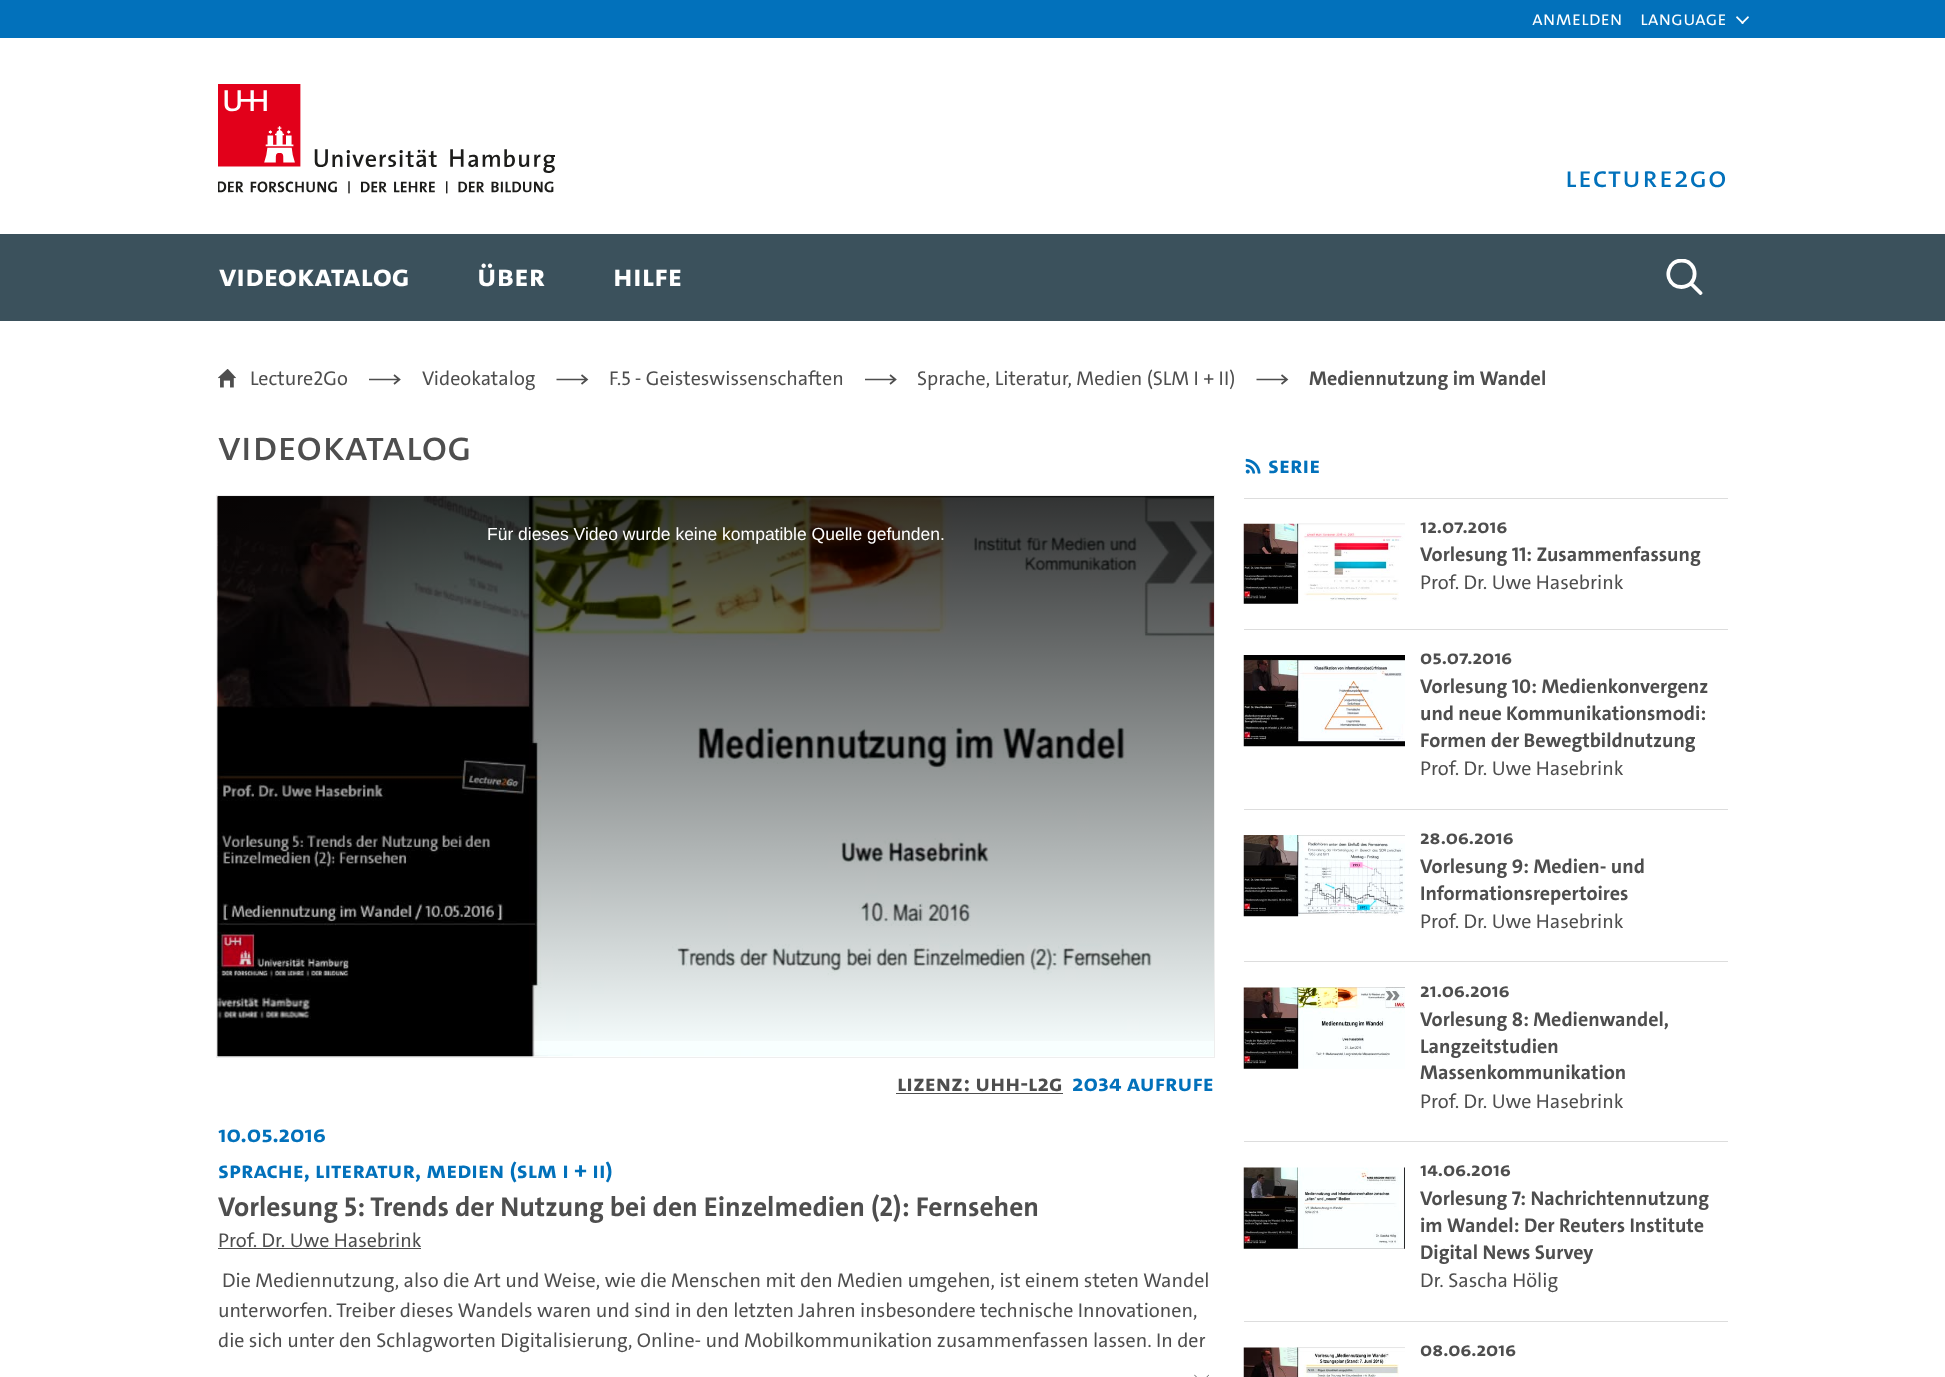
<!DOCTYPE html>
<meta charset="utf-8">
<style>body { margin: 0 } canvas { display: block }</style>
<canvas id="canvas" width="1945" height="1377"></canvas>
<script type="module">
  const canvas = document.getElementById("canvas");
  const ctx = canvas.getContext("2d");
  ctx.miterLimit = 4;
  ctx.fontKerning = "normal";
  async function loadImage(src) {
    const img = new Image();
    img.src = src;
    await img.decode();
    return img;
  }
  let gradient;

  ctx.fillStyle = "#ffffff";
  ctx.fillRect(0, 0, 1945, 1377);
  ctx.fillStyle = "#0271bb";
  ctx.fillRect(0, 0, 1945, 38);
  ctx.font = "300 20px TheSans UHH";
  ctx.fillStyle = "#ffffff";
  ctx.fillText("Anmelden", 1532, 25);
  ctx.fillText("Language", 1640, 25);
  ctx.beginPath();
  ctx.moveTo(1748, 16);
  ctx.lineTo(1749, 17.5);
  ctx.lineTo(1742.5, 24);
  ctx.lineTo(1741, 23);
  ctx.closePath();
  ctx.fill();
  ctx.beginPath();
  ctx.moveTo(1737, 16);
  ctx.lineTo(1744, 23);
  ctx.lineTo(1742.5, 24);
  ctx.lineTo(1736, 17.5);
  ctx.closePath();
  ctx.fill();
  ctx.drawImage(await loadImage("img1.png"), 218, 84, 337, 110);
  ctx.letterSpacing = "1.25px";
  ctx.font = "30px TheSans UHH";
  ctx.fillStyle = "#0271bb";
  ctx.fillText("Lecture2Go", 1565, 187);
  ctx.fillStyle = "#3b515c";
  ctx.fillRect(0, 234, 1945, 87);
  ctx.letterSpacing = "0px";
  ctx.font = "bold 31.25px TheSans UHH";
  ctx.fillStyle = "#ffffff";
  ctx.fillText("Videokatalog", 219, 286);
  ctx.fillText("Über", 477, 286);
  ctx.fillText("Hilfe", 613, 286);
  ctx.save();
  ctx.beginPath();
  ctx.rect(1666, 259, 37, 36);
  ctx.clip();
  ctx.beginPath();
  ctx.moveTo(1681.5, 287);
  ctx.bezierCurveTo(1699, 287, 1699, 260.5, 1681.5, 260.5);
  ctx.bezierCurveTo(1668.5, 260.5, 1663.5, 277.5, 1674, 285);
  ctx.bezierCurveTo(1676, 286.5, 1678.5, 287, 1681.5, 287);
  ctx.closePath();
  ctx.moveTo(1691, 283.5);
  ctx.lineTo(1700.5, 293);
  ctx.strokeStyle = "#ffffff";
  ctx.lineWidth = 3.8;
  ctx.lineCap = "round";
  ctx.stroke();
  ctx.restore();
  ctx.drawImage(await loadImage("img2.png"), 218, 369, 18, 19);
  ctx.font = "20px 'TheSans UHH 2'";
  ctx.fillStyle = "#4e4e4e";
  ctx.fillText("Lecture2Go", 250, 385);
  ctx.beginPath();
  ctx.moveTo(369, 379.5);
  ctx.lineTo(398.5, 379.5);
  ctx.moveTo(394, 375);
  ctx.lineTo(399.5, 379.5);
  ctx.lineTo(394, 384);
  ctx.strokeStyle = "#4e4e4e";
  ctx.lineWidth = 1.7;
  ctx.stroke();
  ctx.fillText("Videokatalog", 422, 385);
  ctx.beginPath();
  ctx.moveTo(556.5, 379.5);
  ctx.lineTo(586, 379.5);
  ctx.moveTo(581.5, 375);
  ctx.lineTo(587, 379.5);
  ctx.lineTo(581.5, 384);
  ctx.stroke();
  ctx.fillText("F.5 - Geisteswissenschaften", 609, 385);
  ctx.beginPath();
  ctx.moveTo(865, 379.5);
  ctx.lineTo(895, 379.5);
  ctx.moveTo(890, 375);
  ctx.lineTo(895.5, 379.5);
  ctx.lineTo(890, 384);
  ctx.stroke();
  ctx.fillText("Sprache, Literatur, Medien (SLM I + II)", 917, 385);
  ctx.beginPath();
  ctx.moveTo(1256.5, 379.5);
  ctx.lineTo(1286, 379.5);
  ctx.moveTo(1281.5, 375);
  ctx.lineTo(1287, 379.5);
  ctx.lineTo(1281.5, 384);
  ctx.stroke();
  ctx.font = "bold 20px 'TheSans UHH 2'";
  ctx.fillText("Mediennutzung im Wandel", 1309, 385);
  ctx.font = "42.5px TheSans UHH";
  ctx.fillText("Videokatalog", 218, 460);
  ctx.strokeStyle = "#eeeeee";
  ctx.lineWidth = 1;
  ctx.strokeRect(216.5, 495.5, 998, 562);
  ctx.drawImage(await loadImage("img3.png"), 217, 496, 997, 561);
  ctx.drawImage(await loadImage("img4.png"), 217, 496, 997, 561);
  gradient = ctx.createLinearGradient(716, 496, 716, 1056);
  gradient.addColorStop(0, "rgba(0, 0, 0, 0.8)");
  gradient.addColorStop(1, "rgba(0, 0, 0, 0)");
  ctx.fillStyle = gradient;
  ctx.fillRect(218, 496, 996, 545);
  ctx.font = "17.5px Liberation Sans";
  ctx.fillStyle = "#ffffff";
  ctx.fillText("Für dieses Video wurde keine kompatible Quelle gefunden.", 487, 540);
  ctx.font = "bold 23.75px TheSans UHH";
  ctx.fillStyle = "#4e4e4e";
  ctx.fillText("Lizenz: UHH-L2G", 897, 1091);
  ctx.fillRect(896, 1093, 167, 1);
  ctx.fillStyle = "#0271bb";
  ctx.fillText("2034 Aufrufe", 1072, 1091);
  ctx.fillText("10.05.2016", 218, 1142);
  ctx.fillText("Sprache, Literatur, Medien (SLM I + II)", 218, 1178);
  ctx.font = "bold 27.5px 'TheSans UHH 2'";
  ctx.fillStyle = "#4e4e4e";
  ctx.fillText("Vorlesung 5: Trends der Nutzung bei den Einzelmedien (2): Fernsehen", 218, 1216);
  ctx.font = "20px 'TheSans UHH 2'";
  ctx.fillText("Prof. Dr. Uwe Hasebrink", 218, 1247);
  ctx.fillRect(218, 1248, 203, 1);
  ctx.fillText("Die Mediennutzung, also die Art und Weise, wie die Menschen mit den Medien umgehen, ist einem steten Wandel", 222, 1287);
  ctx.fillText("unterworfen. Treiber dieses Wandels waren und sind in den letzten Jahren insbesondere technische Innovationen,", 218, 1317);
  ctx.fillText("die sich unter den Schlagworten Digitalisierung, Online- und Mobilkommunikation zusammenfassen lassen. In der", 218, 1347);
  ctx.drawImage(await loadImage("img5.png"), 1194, 1374, 15, 3);
  ctx.drawImage(await loadImage("img6.png"), 1245, 458, 16, 16);
  ctx.font = "bold 23.75px TheSans UHH";
  ctx.fillStyle = "#0271bb";
  ctx.fillText("Serie", 1268, 473);
  ctx.fillStyle = "#dddddd";
  ctx.fillRect(1244, 498, 484, 1);
  ctx.drawImage(await loadImage("img7.png"), 1243, 523, 162, 81);
  ctx.font = "bold 20px TheSans UHH";
  ctx.fillStyle = "#4e4e4e";
  ctx.fillText("12.07.2016", 1420, 533);
  ctx.font = "bold 20px 'TheSans UHH 2'";
  ctx.fillText("Vorlesung 11: Zusammenfassung", 1420, 561);
  ctx.font = "20px 'TheSans UHH 2'";
  ctx.fillText("Prof. Dr. Uwe Hasebrink", 1420, 589);
  ctx.fillStyle = "#dddddd";
  ctx.fillRect(1244, 629, 484, 1);
  ctx.drawImage(await loadImage("img8.png"), 1243, 655, 162, 92);
  ctx.font = "bold 20px TheSans UHH";
  ctx.fillStyle = "#4e4e4e";
  ctx.fillText("05.07.2016", 1420, 664);
  ctx.font = "bold 20px 'TheSans UHH 2'";
  ctx.fillText("Vorlesung 10: Medienkonvergenz", 1420, 693);
  ctx.fillText("und neue Kommunikationsmodi:", 1420, 720);
  ctx.fillText("Formen der Bewegtbildnutzung", 1420, 747);
  ctx.font = "20px 'TheSans UHH 2'";
  ctx.fillText("Prof. Dr. Uwe Hasebrink", 1420, 775);
  ctx.fillStyle = "#dddddd";
  ctx.fillRect(1244, 809, 484, 1);
  ctx.drawImage(await loadImage("img9.png"), 1243, 835, 162, 82);
  ctx.font = "bold 20px TheSans UHH";
  ctx.fillStyle = "#4e4e4e";
  ctx.fillText("28.06.2016", 1420, 844);
  ctx.font = "bold 20px 'TheSans UHH 2'";
  ctx.fillText("Vorlesung 9: Medien- und", 1420, 873);
  ctx.fillText("Informationsrepertoires", 1420, 900);
  ctx.font = "20px 'TheSans UHH 2'";
  ctx.fillText("Prof. Dr. Uwe Hasebrink", 1420, 928);
  ctx.fillStyle = "#dddddd";
  ctx.fillRect(1244, 961, 484, 1);
  ctx.drawImage(await loadImage("img10.png"), 1243, 987, 162, 82);
  ctx.font = "bold 20px TheSans UHH";
  ctx.fillStyle = "#4e4e4e";
  ctx.fillText("21.06.2016", 1420, 997);
  ctx.font = "bold 20px 'TheSans UHH 2'";
  ctx.fillText("Vorlesung 8: Medienwandel,", 1420, 1026);
  ctx.fillText("Langzeitstudien", 1420, 1053);
  ctx.fillText("Massenkommunikation", 1420, 1079);
  ctx.font = "20px 'TheSans UHH 2'";
  ctx.fillText("Prof. Dr. Uwe Hasebrink", 1420, 1108);
  ctx.fillStyle = "#dddddd";
  ctx.fillRect(1244, 1141, 484, 1);
  ctx.drawImage(await loadImage("img11.png"), 1243, 1167, 162, 82);
  ctx.font = "bold 20px TheSans UHH";
  ctx.fillStyle = "#4e4e4e";
  ctx.fillText("14.06.2016", 1420, 1176);
  ctx.font = "bold 20px 'TheSans UHH 2'";
  ctx.fillText("Vorlesung 7: Nachrichtennutzung", 1420, 1205);
  ctx.fillText("im Wandel: Der Reuters Institute", 1420, 1232);
  ctx.fillText("Digital News Survey", 1420, 1259);
  ctx.font = "20px 'TheSans UHH 2'";
  ctx.fillText("Dr. Sascha Hölig", 1420, 1287);
  ctx.fillStyle = "#dddddd";
  ctx.fillRect(1244, 1321, 484, 1);
  ctx.drawImage(await loadImage("img12.png"), 1243, 1347, 162, 30);
  ctx.font = "bold 20px TheSans UHH";
  ctx.fillStyle = "#4e4e4e";
  ctx.fillText("08.06.2016", 1420, 1356);
</script>
